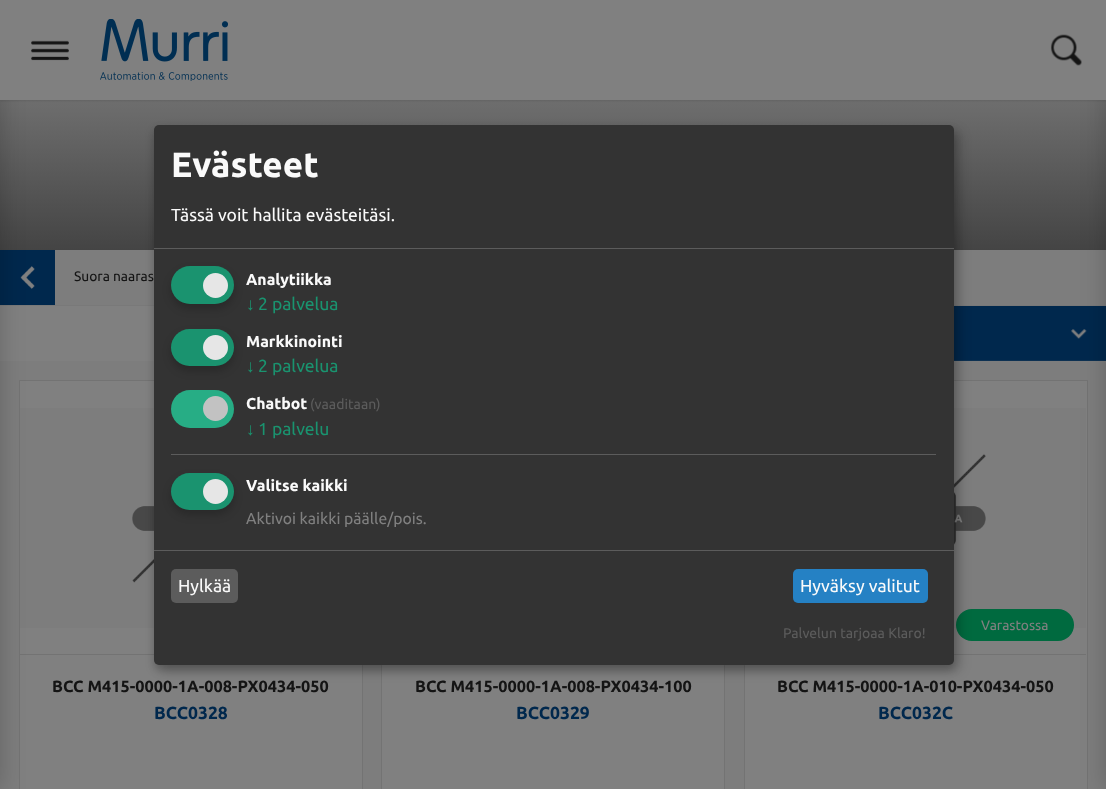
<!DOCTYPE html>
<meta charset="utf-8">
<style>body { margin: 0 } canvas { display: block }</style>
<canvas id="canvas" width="1106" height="789"></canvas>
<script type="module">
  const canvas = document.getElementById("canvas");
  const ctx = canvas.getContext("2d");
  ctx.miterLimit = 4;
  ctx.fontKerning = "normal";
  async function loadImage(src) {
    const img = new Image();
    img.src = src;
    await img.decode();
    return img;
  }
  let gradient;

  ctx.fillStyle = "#808080";
  ctx.fillRect(0, 0, 1106, 789);
  gradient = ctx.createLinearGradient(553, 100, 553, 250);
  gradient.addColorStop(0, "#6e6e6e");
  gradient.addColorStop(1, "#444444");
  ctx.fillStyle = gradient;
  ctx.fillRect(0, 100, 1106, 150);
  ctx.fillStyle = "#00284d";
  ctx.fillRect(0, 250, 55, 55);
  ctx.drawImage(await loadImage("img4.png"), 20, 266, 15, 23);
  ctx.fillStyle = "#797979";
  ctx.fillRect(0, 305, 1106, 1);
  ctx.fillStyle = "#7d7d7d";
  ctx.fillRect(0, 361, 1106, 428);
  ctx.fillStyle = "#808080";
  ctx.beginPath();
  ctx.rect(19.5, 380.5, 343, 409);
  ctx.fill();
  ctx.strokeStyle = "#737373";
  ctx.stroke();
  ctx.drawImage(await loadImage("img6.png"), 20, 408, 134, 220);
  ctx.fillStyle = "#737373";
  ctx.fillRect(20, 654, 134, 1);
  ctx.fillStyle = "rgba(0, 0, 0, 0.2)";
  ctx.filter = "blur(12.5px)";
  ctx.beginPath();
  ctx.rect(-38, 0, 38, 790);
  ctx.fill();
  ctx.filter = "none";
  ctx.fillStyle = "#7d7d7d";
  ctx.fillRect(55, 250, 1051, 55);
  ctx.fillStyle = "#00284d";
  ctx.fillRect(954, 306, 152, 54);
  ctx.fillStyle = "#0d3152";
  ctx.fillRect(954, 360, 152, 1);
  ctx.fillStyle = "#808080";
  ctx.fillRect(382, 665, 342, 124);
  ctx.strokeRect(381.5, 380.5, 343, 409);
  ctx.beginPath();
  ctx.rect(744.5, 380.5, 343, 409);
  ctx.fill();
  ctx.stroke();
  ctx.drawImage(await loadImage("img7.png"), 954, 408, 132, 220);
  ctx.fillStyle = "#737373";
  ctx.fillRect(954, 654, 132, 1);
  ctx.fillStyle = "#006a3f";
  ctx.beginPath();
  ctx.roundRect(956, 609, 118, 32, 16);
  ctx.fill();
  ctx.fillStyle = "rgba(0, 0, 0, 0.19)";
  ctx.filter = "blur(6px)";
  ctx.beginPath();
  ctx.roundRect(160, 131, 800, 540, 5);
  ctx.fill();
  ctx.filter = "none";
  ctx.fillStyle = "rgba(0, 0, 0, 0.2)";
  ctx.filter = "blur(4px)";
  ctx.beginPath();
  ctx.roundRect(154, 130, 800, 540, 5);
  ctx.fill();
  ctx.filter = "none";
  ctx.fillStyle = "#333333";
  ctx.beginPath();
  ctx.roundRect(154, 125, 800, 540, 5);
  ctx.fill();
  ctx.fillStyle = "#5c5c5c";
  ctx.fillRect(154, 248, 800, 1);
  ctx.font = "bold 35px Ubuntu";
  ctx.fillStyle = "#fafafa";
  ctx.fillText("Evästeet", 171, 177);
  ctx.font = "17.5px Ubuntu";
  ctx.fillText("Tässä voit hallita evästeitäsi.", 171, 221);
  ctx.fillStyle = "rgba(0, 0, 0, 0.2)";
  ctx.filter = "blur(4px)";
  ctx.beginPath();
  ctx.roundRect(171, 271, 63, 38, 19);
  ctx.fill();
  ctx.filter = "none";
  ctx.fillStyle = "#1a936f";
  ctx.beginPath();
  ctx.roundRect(171, 266, 63, 38, 19);
  ctx.fill();
  ctx.fillStyle = "#e6e6e6";
  ctx.beginPath();
  ctx.arc(215.5, 285.5, 12.5, 0, Math.PI * 2);
  ctx.fill();
  ctx.font = "bold 15.75px Ubuntu";
  ctx.fillStyle = "#fafafa";
  ctx.fillText("Analytiikka", 246, 285);
  ctx.font = "17.5px Liberation Sans";
  ctx.fillStyle = "#1a936f";
  ctx.fillText("↓", 246, 310);
  ctx.font = "17.5px Ubuntu";
  ctx.fillText("2 palvelua", 258, 310);
  ctx.fillStyle = "rgba(0, 0, 0, 0.2)";
  ctx.filter = "blur(4px)";
  ctx.beginPath();
  ctx.roundRect(171, 334, 63, 37, 18.5);
  ctx.fill();
  ctx.filter = "none";
  ctx.fillStyle = "#1a936f";
  ctx.beginPath();
  ctx.roundRect(171, 329, 63, 37, 18.5);
  ctx.fill();
  ctx.fillStyle = "#e6e6e6";
  ctx.beginPath();
  ctx.arc(215.5, 347.5, 12.5, 0, Math.PI * 2);
  ctx.fill();
  ctx.font = "bold 15.75px Ubuntu";
  ctx.fillStyle = "#fafafa";
  ctx.fillText("Markkinointi", 246, 347);
  ctx.font = "17.5px Liberation Sans";
  ctx.fillStyle = "#1a936f";
  ctx.fillText("↓", 246, 372);
  ctx.font = "17.5px Ubuntu";
  ctx.fillText("2 palvelua", 258, 372);
  ctx.fillStyle = "#27ad85";
  ctx.beginPath();
  ctx.roundRect(171, 390, 63, 38, 19);
  ctx.fill();
  ctx.fillStyle = "#c2c2c2";
  ctx.beginPath();
  ctx.arc(215.5, 408.5, 12.5, 0, Math.PI * 2);
  ctx.fill();
  ctx.font = "bold 15.75px Ubuntu";
  ctx.fillStyle = "#fafafa";
  ctx.fillText("Chatbot", 246, 409);
  ctx.font = "14px Ubuntu";
  ctx.fillStyle = "#5c5c5c";
  ctx.fillText("(vaaditaan)", 310, 409);
  ctx.font = "17.5px Liberation Sans";
  ctx.fillStyle = "#1a936f";
  ctx.fillText("↓", 246, 435);
  ctx.font = "17.5px Ubuntu";
  ctx.fillText("1 palvelu", 258, 435);
  ctx.fillStyle = "#5c5c5c";
  ctx.fillRect(171, 454, 765, 1);
  ctx.fillStyle = "rgba(0, 0, 0, 0.2)";
  ctx.filter = "blur(4px)";
  ctx.beginPath();
  ctx.roundRect(171, 478, 63, 37, 18.5);
  ctx.fill();
  ctx.filter = "none";
  ctx.fillStyle = "#1a936f";
  ctx.beginPath();
  ctx.roundRect(171, 473, 63, 37, 18.5);
  ctx.fill();
  ctx.fillStyle = "#e6e6e6";
  ctx.beginPath();
  ctx.arc(215.5, 491.5, 12.5, 0, Math.PI * 2);
  ctx.fill();
  ctx.font = "bold 15.75px Ubuntu";
  ctx.fillStyle = "#fafafa";
  ctx.fillText("Valitse kaikki", 246, 491);
  ctx.font = "15.75px Ubuntu";
  ctx.fillStyle = "#808080";
  ctx.fillText("Aktivoi kaikki päälle/pois.", 246, 524);
  ctx.fillStyle = "#5c5c5c";
  ctx.fillRect(154, 550, 800, 1);
  ctx.beginPath();
  ctx.roundRect(171, 569, 67, 34, 5);
  ctx.fill();
  ctx.font = "17.5px Ubuntu";
  ctx.fillStyle = "#fafafa";
  ctx.fillText("Hylkää", 178, 592);
  ctx.fillStyle = "#2581c4";
  ctx.beginPath();
  ctx.roundRect(793, 569, 135, 34, 5);
  ctx.fill();
  ctx.fillStyle = "#fafafa";
  ctx.fillText("Hyväksy valitut", 800, 592);
  ctx.font = "14px Ubuntu";
  ctx.fillStyle = "#5c5c5c";
  ctx.fillText("Palvelun tarjoaa Klaro!", 783, 638);
  ctx.drawImage(await loadImage("img5.png"), 1071, 329, 16, 10);
  ctx.fillStyle = "rgba(0, 0, 0, 0.2)";
  ctx.filter = "blur(12.5px)";
  ctx.beginPath();
  ctx.rect(1106, 0, 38, 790);
  ctx.fill();
  ctx.filter = "none";
  ctx.fillStyle = "rgba(0, 0, 0, 0.1)";
  ctx.filter = "blur(1px)";
  ctx.beginPath();
  ctx.rect(0, 1, 1106, 100);
  ctx.fill();
  ctx.filter = "none";
  ctx.fillStyle = "#808080";
  ctx.fillRect(0, 0, 1106, 100);
  ctx.drawImage(await loadImage("img1.png"), 31, 40, 38, 21);
  ctx.drawImage(await loadImage("img2.png"), 100, 19, 128, 62);
  ctx.drawImage(await loadImage("img3.png"), 1050, 34, 32, 32);
  ctx.font = "13.75px Ubuntu";
  ctx.fillStyle = "#141414";
  ctx.fillText("Suora naaras", 74, 281);
  ctx.font = "bold 16.25px Ubuntu";
  ctx.fillText("BCC M415-0000-1A-008-PX0434-050", 52, 692);
  ctx.font = "bold 17.5px Ubuntu";
  ctx.fillStyle = "#00284d";
  ctx.fillText("BCC0328", 154, 719);
  ctx.font = "bold 16.25px Ubuntu";
  ctx.fillStyle = "#141414";
  ctx.fillText("BCC M415-0000-1A-008-PX0434-100", 415, 692);
  ctx.font = "bold 17.5px Ubuntu";
  ctx.fillStyle = "#00284d";
  ctx.fillText("BCC0329", 516, 719);
  ctx.font = "13.75px Ubuntu";
  ctx.fillStyle = "#808080";
  ctx.fillText("Varastossa", 981, 630);
  ctx.font = "bold 16.25px Ubuntu";
  ctx.fillStyle = "#141414";
  ctx.fillText("BCC M415-0000-1A-010-PX0434-050", 777, 692);
  ctx.font = "bold 17.5px Ubuntu";
  ctx.fillStyle = "#00284d";
  ctx.fillText("BCC032C", 878, 719);
</script>
